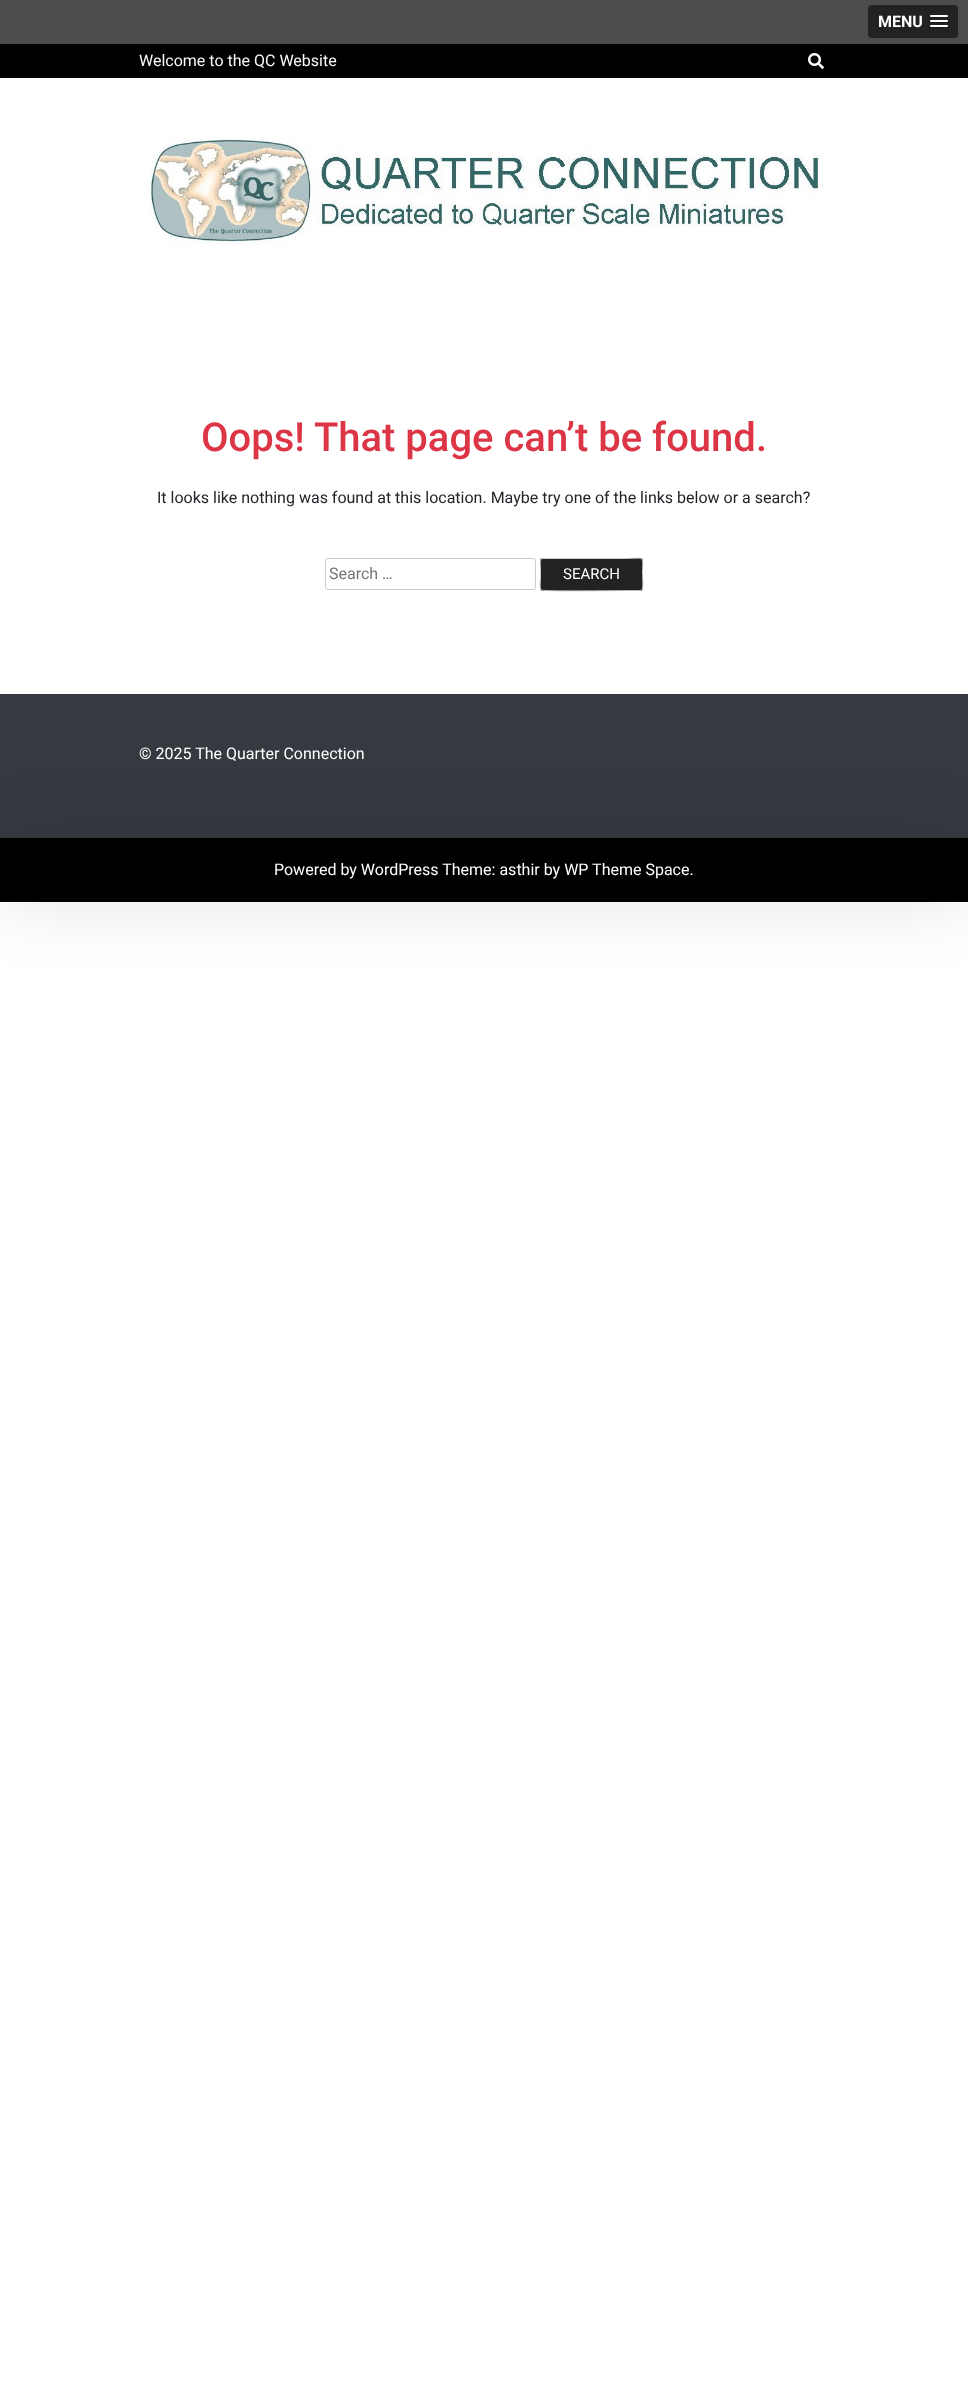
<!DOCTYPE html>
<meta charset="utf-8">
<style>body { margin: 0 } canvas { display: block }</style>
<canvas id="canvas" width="968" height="2386"></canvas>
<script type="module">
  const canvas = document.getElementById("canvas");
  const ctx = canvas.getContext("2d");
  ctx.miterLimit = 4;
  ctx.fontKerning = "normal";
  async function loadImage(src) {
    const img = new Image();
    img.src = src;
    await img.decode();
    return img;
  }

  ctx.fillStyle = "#ffffff";
  ctx.fillRect(0, 0, 968, 2386);
  ctx.fillStyle = "#4c4c4c";
  ctx.fillRect(0, 0, 968, 44);
  ctx.fillStyle = "#222222";
  ctx.beginPath();
  ctx.roundRect(868, 5, 90, 33, 4);
  ctx.fill();
  ctx.font = "bold 16px Roboto";
  ctx.fillStyle = "#ffffff";
  ctx.fillText("MENU", 878, 27);
  ctx.fillStyle = "#1a1a1a";
  ctx.beginPath();
  ctx.moveTo(930, 16.5);
  ctx.bezierCurveTo(929, 18.5, 933.5, 18, 933.5, 18);
  ctx.lineTo(944.5, 18);
  ctx.bezierCurveTo(944.5, 18, 949, 18.5, 948, 16.5);
  ctx.bezierCurveTo(947, 17.5, 940.5, 17, 939, 17);
  ctx.bezierCurveTo(937.5, 17, 931, 17.5, 930, 16.5);
  ctx.closePath();
  ctx.fill();
  ctx.fillStyle = "#ffffff";
  ctx.beginPath();
  ctx.roundRect(930, 15, 18, 2, 1);
  ctx.fill();
  ctx.fillStyle = "#1a1a1a";
  ctx.beginPath();
  ctx.moveTo(930, 21.5);
  ctx.bezierCurveTo(929, 23.5, 933.5, 23, 933.5, 23);
  ctx.lineTo(944.5, 23);
  ctx.bezierCurveTo(944.5, 23, 949, 23.5, 948, 21.5);
  ctx.bezierCurveTo(947, 22.5, 940.5, 22, 939, 22);
  ctx.bezierCurveTo(937.5, 22, 931, 22.5, 930, 21.5);
  ctx.closePath();
  ctx.fill();
  ctx.fillStyle = "#ffffff";
  ctx.beginPath();
  ctx.roundRect(930, 20, 18, 2, 1);
  ctx.fill();
  ctx.fillStyle = "#1a1a1a";
  ctx.beginPath();
  ctx.moveTo(930, 26.5);
  ctx.bezierCurveTo(929, 28.5, 933.5, 28, 933.5, 28);
  ctx.lineTo(944.5, 28);
  ctx.bezierCurveTo(944.5, 28, 949, 28.5, 948, 26.5);
  ctx.bezierCurveTo(947, 27.5, 940.5, 27, 939, 27);
  ctx.bezierCurveTo(937.5, 27, 931, 27.5, 930, 26.5);
  ctx.closePath();
  ctx.fill();
  ctx.fillStyle = "#ffffff";
  ctx.beginPath();
  ctx.roundRect(930, 25, 18, 2, 1);
  ctx.fill();
  ctx.fillStyle = "#000000";
  ctx.fillRect(0, 44, 968, 34);
  ctx.font = "16px Roboto";
  ctx.fillStyle = "#f8f9fa";
  ctx.fillText("Welcome to the QC Website", 139, 66);
  ctx.drawImage(await loadImage("img1.png"), 808, 53, 16, 16);
  ctx.drawImage(await loadImage("img2.png"), 149, 138, 674, 108);
  ctx.font = "500 40px Roboto";
  ctx.fillStyle = "#dc3545";
  ctx.fillText("Oops! That page can’t be found.", 201, 451);
  ctx.font = "16px Roboto";
  ctx.fillStyle = "#212529";
  ctx.fillText("It looks like nothing was found at this location. Maybe try one of the links below or a search?", 157, 503);
  ctx.beginPath();
  ctx.roundRect(325.5, 558.5, 210, 31, 2.5);
  ctx.strokeStyle = "#cccccc";
  ctx.stroke();
  ctx.fillStyle = "#757575";
  ctx.fillText("Search …", 329, 579);
  ctx.fillStyle = "#222222";
  ctx.beginPath();
  ctx.roundRect(540, 558, 103, 33, 3);
  ctx.fill();
  ctx.beginPath();
  ctx.moveTo(642, 590);
  ctx.lineTo(640, 590.5);
  ctx.lineTo(624, 590.5);
  ctx.bezierCurveTo(615.5, 590.5, 543.5, 591.5, 541.5, 590);
  ctx.lineTo(541, 590);
  ctx.strokeStyle = "#bbbbbb";
  ctx.stroke();
  ctx.beginPath();
  ctx.moveTo(541, 590);
  ctx.bezierCurveTo(539.5, 588, 540.5, 581, 540.5, 579);
  ctx.lineTo(540.5, 565.5);
  ctx.bezierCurveTo(540.5, 563.5, 539.5, 558.5, 543, 558.5);
  ctx.lineTo(624, 558.5);
  ctx.bezierCurveTo(646, 558.5, 642.5, 554.5, 642.5, 574.5);
  ctx.bezierCurveTo(642.5, 577, 643.5, 588, 642, 590);
  ctx.strokeStyle = "#cccccc";
  ctx.stroke();
  ctx.font = "15px Roboto";
  ctx.fillStyle = "#ffffff";
  ctx.fillText("SEARCH", 563, 579);
  ctx.fillStyle = "#343a40";
  ctx.fillRect(0, 694, 968, 144);
  ctx.fillStyle = "rgba(0, 0, 0, 0.11)";
  ctx.filter = "blur(35px)";
  ctx.beginPath();
  ctx.rect(0, 838, 968, 64);
  ctx.fill();
  ctx.filter = "none";
  ctx.font = "16px Roboto";
  ctx.fillStyle = "#ffffff";
  ctx.fillText("© 2025 The Quarter Connection", 139, 759);
  ctx.fillStyle = "#000000";
  ctx.fillRect(0, 838, 968, 64);
  ctx.fillStyle = "#ffffff";
  ctx.fillText("Powered by WordPress Theme: asthir by WP Theme Space.", 274, 875);
</script>
